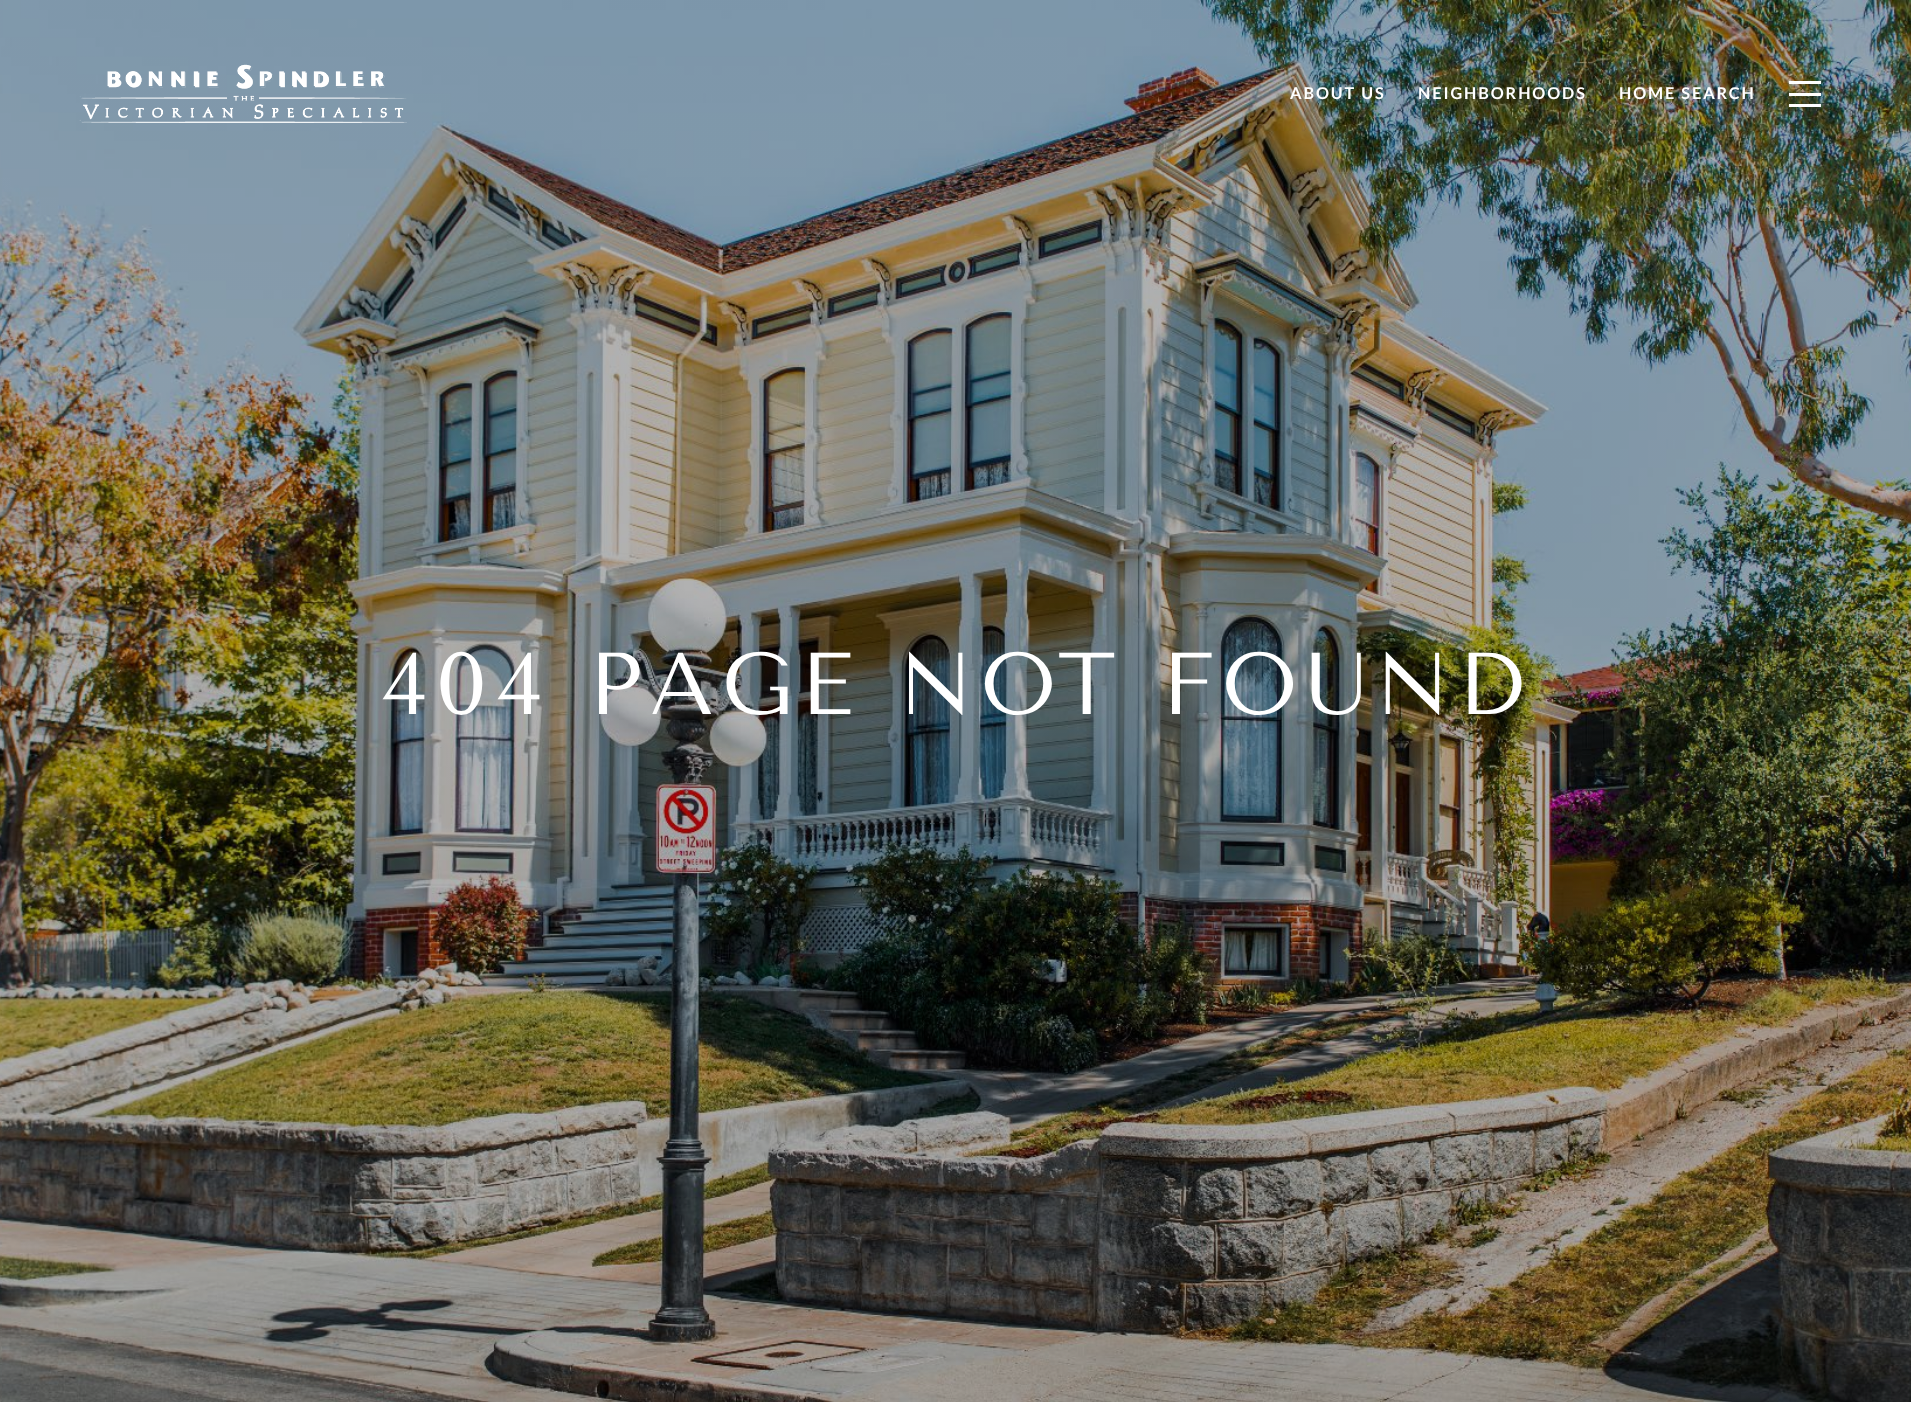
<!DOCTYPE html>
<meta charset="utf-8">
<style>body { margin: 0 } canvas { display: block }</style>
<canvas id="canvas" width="1911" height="1402"></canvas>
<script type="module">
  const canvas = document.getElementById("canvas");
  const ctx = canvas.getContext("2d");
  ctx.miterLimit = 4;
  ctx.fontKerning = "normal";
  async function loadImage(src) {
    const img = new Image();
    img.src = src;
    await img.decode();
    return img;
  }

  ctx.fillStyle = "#ffffff";
  ctx.fillRect(0, 0, 1911, 1402);
  ctx.drawImage(await loadImage("img2.png"), 0, 0, 1911, 1402);
  ctx.drawImage(await loadImage("img1.png"), 79, 64, 328, 59);
  ctx.letterSpacing = "1.9px";
  ctx.font = "bold 16.25px Lato";
  ctx.fillText("ABOUT US", 1290, 99);
  ctx.fillText("NEIGHBORHOODS", 1418, 99);
  ctx.fillText("HOME SEARCH", 1619, 99);
  ctx.fillRect(1789, 93, 32, 3);
  ctx.fillRect(1789, 81, 32, 3);
  ctx.fillRect(1789, 104, 32, 3);
  ctx.letterSpacing = "7.5px";
  ctx.font = "87.5px Tenor Sans";
  ctx.fillText("404 PAGE NOT FOUND", 380, 714);
</script>
